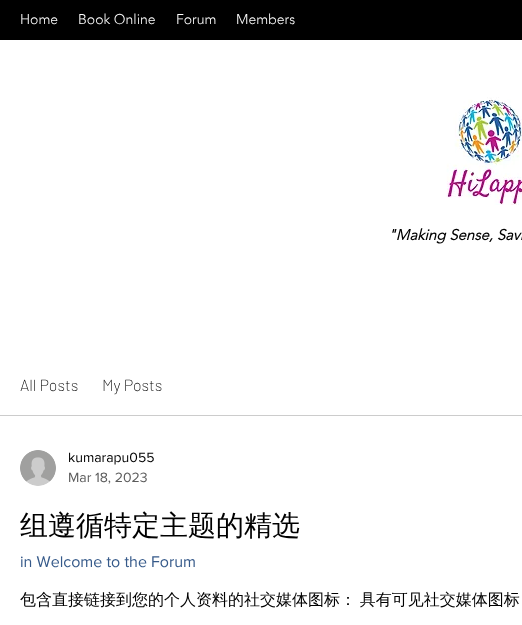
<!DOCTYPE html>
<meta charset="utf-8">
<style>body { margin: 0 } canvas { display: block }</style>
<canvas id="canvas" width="522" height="625"></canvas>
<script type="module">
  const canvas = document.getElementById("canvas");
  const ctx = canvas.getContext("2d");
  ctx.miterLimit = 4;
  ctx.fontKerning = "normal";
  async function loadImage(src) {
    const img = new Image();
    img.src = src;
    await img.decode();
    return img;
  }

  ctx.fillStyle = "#ffffff";
  ctx.fillRect(0, 0, 522, 625);
  ctx.fillStyle = "#000000";
  ctx.fillRect(0, 0, 522, 40);
  ctx.font = "300 14px 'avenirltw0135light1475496'";
  ctx.fillStyle = "#ffffff";
  ctx.fillText("Home", 20, 24);
  ctx.fillText("Book Online", 78, 24);
  ctx.fillText("Forum", 176, 24);
  ctx.fillText("Members", 236, 24);
  ctx.drawImage(await loadImage("img1.png"), 446, 97, 76, 108);
  ctx.font = "italic bold 15px 'avenirltw0135light1475496'";
  ctx.fillStyle = "#000000";
  ctx.fillText("\"Making Sense, Savi", 388, 240);
  ctx.fillStyle = "#cccccc";
  ctx.fillRect(0, 415, 522, 1);
  ctx.font = "200 16px Barlow";
  ctx.fillStyle = "#000000";
  ctx.fillText("All Posts", 20, 391);
  ctx.fillText("My Posts", 102, 391);
  ctx.drawImage(await loadImage("img2.png"), 20, 450, 36, 36);
  ctx.font = "14px 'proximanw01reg'";
  ctx.fillText("kumarapu055", 68, 462);
  ctx.fillStyle = "#5c5c5c";
  ctx.fillText("Mar 18, 2023", 68, 482);
  ctx.font = "500 28px WenQuanYi Zen Hei";
  ctx.fillStyle = "#000000";
  ctx.fillText("组遵循特定主题的精选", 20, 535);
  ctx.font = "16px 'proximanw01reg'";
  ctx.fillStyle = "#365a8a";
  ctx.fillText("in Welcome to the Forum", 20, 567);
  ctx.wordSpacing = "-1px";
  ctx.font = "500 16px WenQuanYi Zen Hei";
  ctx.fillStyle = "#000000";
  ctx.fillText("包含直接链接到您的个人资料的社交媒体图标： 具有可见社交媒体图标", 20, 605);
</script>
